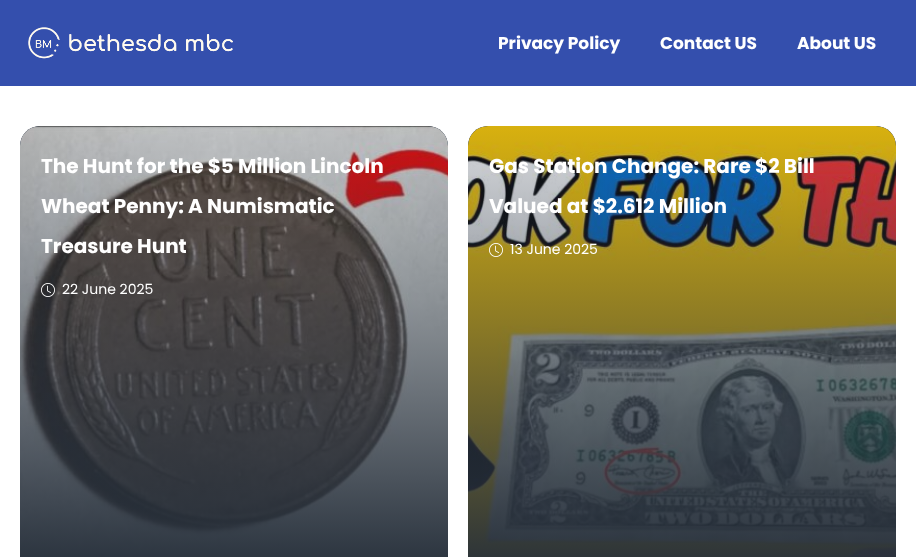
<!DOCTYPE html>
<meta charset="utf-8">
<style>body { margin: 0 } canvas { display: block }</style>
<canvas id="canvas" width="916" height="557"></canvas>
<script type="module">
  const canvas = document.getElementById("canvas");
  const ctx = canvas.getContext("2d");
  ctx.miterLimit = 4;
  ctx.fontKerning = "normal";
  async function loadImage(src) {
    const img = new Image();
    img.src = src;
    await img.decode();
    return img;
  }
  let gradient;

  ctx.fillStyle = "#ffffff";
  ctx.fillRect(0, 0, 916, 557);
  ctx.fillStyle = "#344fad";
  ctx.fillRect(0, 0, 916, 86);
  ctx.drawImage(await loadImage("img1.png"), 28, 27, 205, 32);
  ctx.font = "bold 17px Poppins";
  ctx.fillStyle = "#ffffff";
  ctx.fillText("Privacy Policy", 498, 49);
  ctx.fillText("Contact US", 660, 49);
  ctx.fillText("About US", 797, 49);
  ctx.fillStyle = "#303b4b";
  ctx.beginPath();
  ctx.roundRect(20, 126, 428, 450, 20);
  ctx.fill();
  ctx.drawImage(await loadImage("img2.png"), 20, 126, 428, 431);
  gradient = ctx.createLinearGradient(234, 126, 234, 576);
  gradient.addColorStop(0, "rgba(47, 58, 74, 0.19)");
  gradient.addColorStop(1, "#262f3a");
  ctx.fillStyle = gradient;
  ctx.beginPath();
  ctx.roundRect(20, 126, 428, 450, 20);
  ctx.fill();
  ctx.font = "bold 20px Poppins";
  ctx.fillStyle = "#ffffff";
  ctx.fillText("The Hunt for the $5 Million Lincoln", 41, 173);
  ctx.fillText("Wheat Penny: A Numismatic", 41, 213);
  ctx.fillText("Treasure Hunt", 41, 253);
  ctx.drawImage(await loadImage("img3.png"), 41, 283, 14, 14);
  ctx.font = "14px Poppins";
  ctx.fillText("22 June 2025", 62, 294);
  ctx.fillStyle = "#303b4b";
  ctx.beginPath();
  ctx.roundRect(468, 126, 428, 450, 20);
  ctx.fill();
  ctx.drawImage(await loadImage("img4.png"), 468, 126, 428, 431);
  gradient = ctx.createLinearGradient(682, 126, 682, 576);
  gradient.addColorStop(0, "rgba(47, 58, 74, 0.19)");
  gradient.addColorStop(1, "#262f3a");
  ctx.fillStyle = gradient;
  ctx.beginPath();
  ctx.roundRect(468, 126, 428, 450, 20);
  ctx.fill();
  ctx.font = "bold 20px Poppins";
  ctx.fillStyle = "#ffffff";
  ctx.fillText("Gas Station Change: Rare $2 Bill", 489, 173);
  ctx.fillText("Valued at $2.612 Million", 489, 213);
  ctx.drawImage(await loadImage("img5.png"), 489, 243, 14, 14);
  ctx.font = "14px Poppins";
  ctx.fillText("13 June 2025", 510, 254);
</script>
